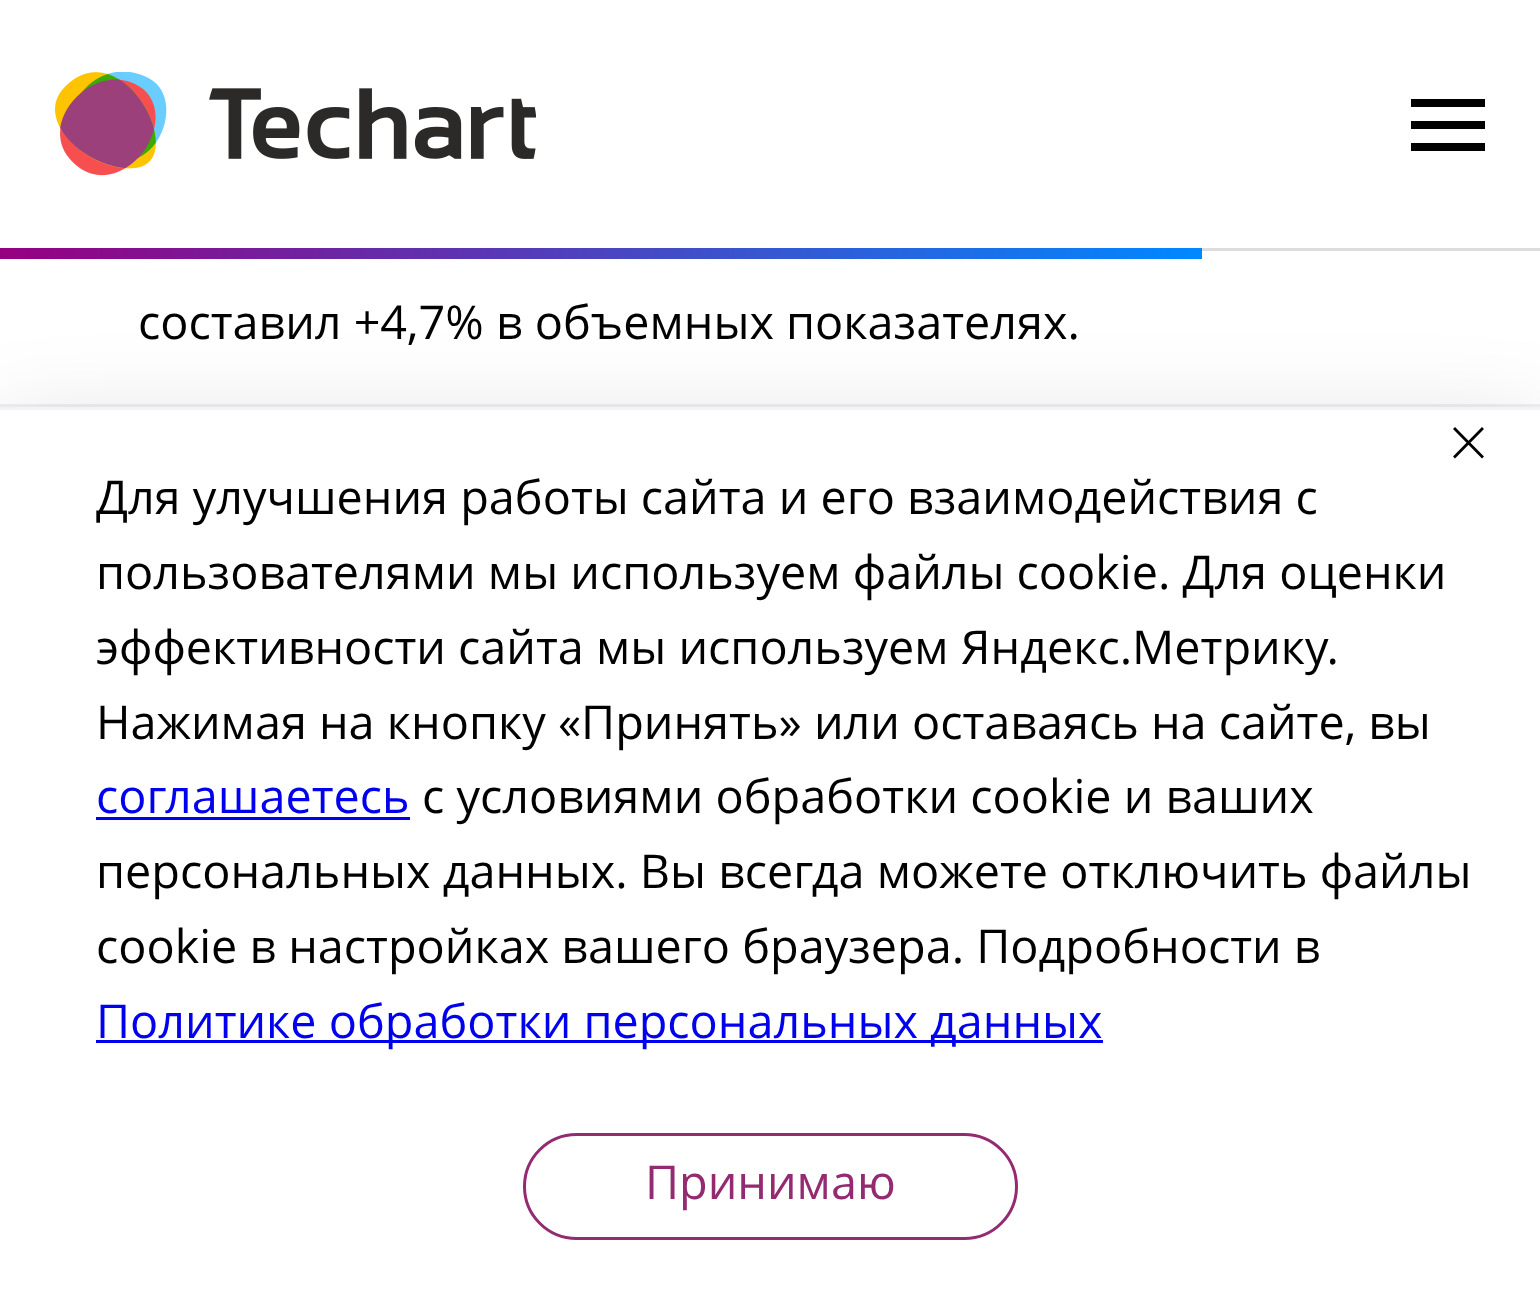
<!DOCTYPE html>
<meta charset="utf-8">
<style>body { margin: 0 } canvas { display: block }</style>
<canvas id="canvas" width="1540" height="1293"></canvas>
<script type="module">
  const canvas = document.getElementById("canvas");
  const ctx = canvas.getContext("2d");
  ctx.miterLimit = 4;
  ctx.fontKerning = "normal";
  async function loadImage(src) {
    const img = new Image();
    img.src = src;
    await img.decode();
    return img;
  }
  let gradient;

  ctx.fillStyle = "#ffffff";
  ctx.fillRect(0, 0, 1540, 1293);
  ctx.fillStyle = "#dddddd";
  ctx.fillRect(1202, 248, 338, 3);
  ctx.drawImage(await loadImage("img1.png"), 55, 72, 481, 104);
  ctx.fillStyle = "#000000";
  ctx.fillRect(1411, 99, 74, 8);
  ctx.fillRect(1411, 121, 74, 8);
  ctx.fillRect(1411, 143, 74, 8);
  gradient = ctx.createLinearGradient(0, 253, 1202, 253);
  gradient.addColorStop(0, "#960080");
  gradient.addColorStop(1, "#0088ff");
  ctx.fillStyle = gradient;
  ctx.fillRect(0, 248, 1202, 11);
  ctx.font = "46.75px Open Sans";
  ctx.fillStyle = "#000000";
  ctx.fillText("составил +4,7% в объемных показателях.", 138, 339);
  ctx.strokeStyle = "#f0f0f0";
  ctx.lineWidth = 3;
  ctx.strokeRect(-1.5, 405.5, 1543, 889);
  ctx.fillStyle = "rgba(0, 0, 0, 0.16)";
  ctx.filter = "blur(49.5px)";
  ctx.beginPath();
  ctx.rect(0, 435, 1540, 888);
  ctx.fill();
  ctx.filter = "none";
  ctx.fillStyle = "#ffffff";
  ctx.fillRect(0, 410, 1540, 883);
  ctx.fillStyle = "#f1f3f6";
  ctx.fillRect(0, 407, 1540, 3);
  ctx.beginPath();
  ctx.moveTo(1482, 429);
  ctx.lineTo(1455, 456.5);
  ctx.moveTo(1455, 429);
  ctx.lineTo(1482, 456.5);
  ctx.strokeStyle = "#000000";
  ctx.lineWidth = 2.8;
  ctx.lineCap = "square";
  ctx.lineJoin = "round";
  ctx.stroke();
  ctx.fillStyle = "#000000";
  ctx.fillText("Для улучшения работы сайта и его взаимодействия с", 96, 514);
  ctx.fillText("пользователями мы используем файлы cookie. Для оценки", 96, 589);
  ctx.fillText("эффективности сайта мы используем Яндекс.Метрику.", 96, 664);
  ctx.fillText("Нажимая на кнопку «Принять» или оставаясь на сайте, вы", 96, 739);
  ctx.fillStyle = "#0000ee";
  ctx.fillText("соглашаетесь", 96, 813);
  ctx.fillRect(96, 817, 314, 3);
  ctx.fillStyle = "#000000";
  ctx.fillText("с условиями обработки cookie и ваших", 422, 813);
  ctx.fillText("персональных данных. Вы всегда можете отключить файлы", 96, 888);
  ctx.fillText("cookie в настройках вашего браузера. Подробности в", 96, 963);
  ctx.fillStyle = "#0000ee";
  ctx.fillRect(96, 1040, 1007, 3);
  ctx.fillText("Политике обработки персональных данных", 96, 1038);
  ctx.beginPath();
  ctx.roundRect(524.5, 1134.5, 492, 104, 52);
  ctx.strokeStyle = "#942a72";
  ctx.lineWidth = 3;
  ctx.lineJoin = "miter";
  ctx.stroke();
  ctx.fillStyle = "#942a72";
  ctx.fillText("Принимаю", 645, 1199);
</script>
